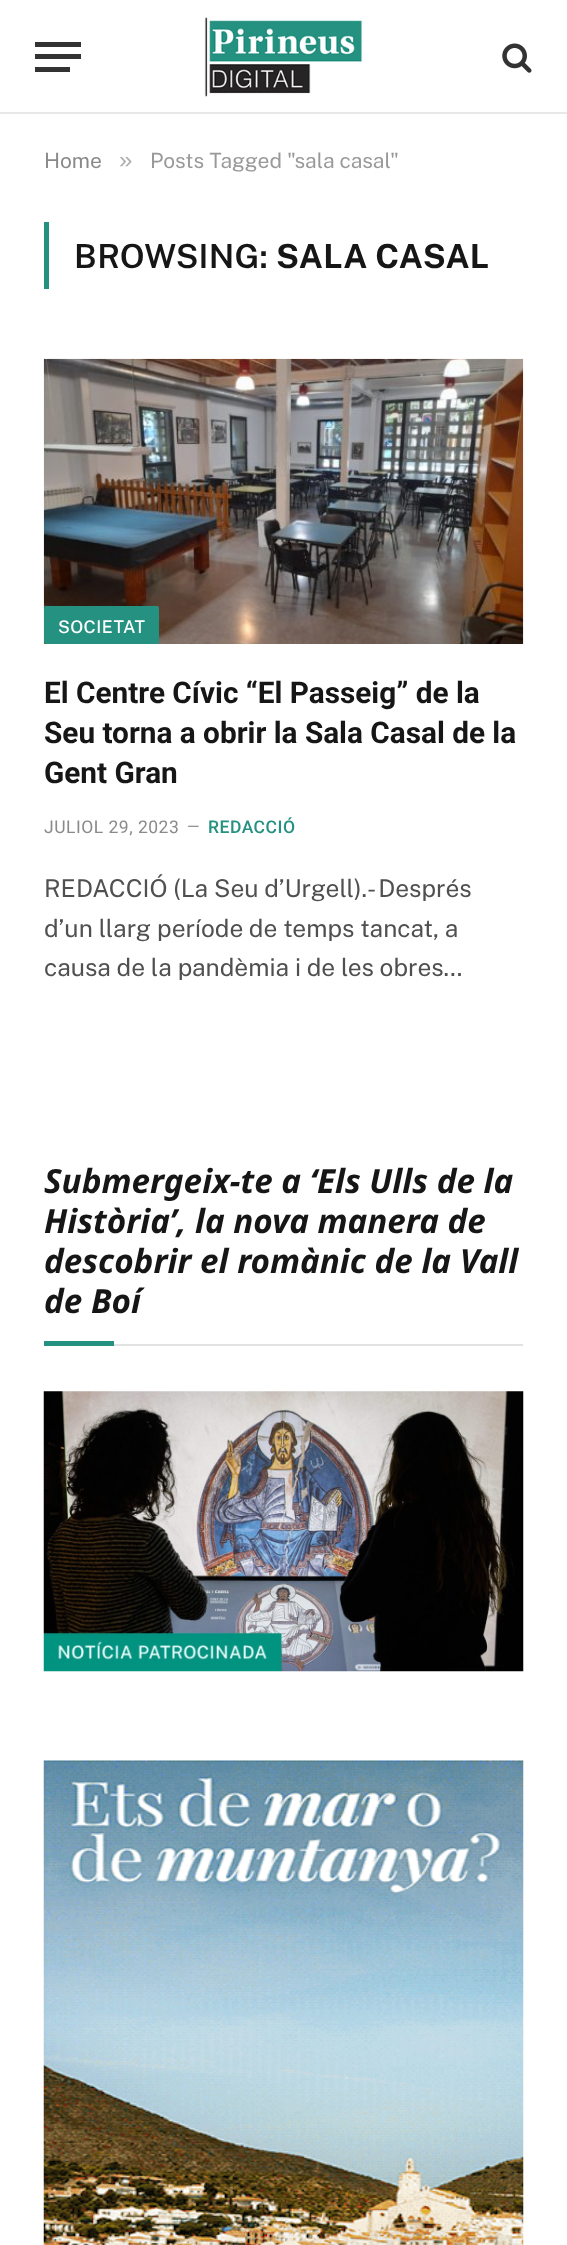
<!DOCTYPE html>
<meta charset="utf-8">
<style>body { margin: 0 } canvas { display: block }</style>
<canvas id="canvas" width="567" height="2245"></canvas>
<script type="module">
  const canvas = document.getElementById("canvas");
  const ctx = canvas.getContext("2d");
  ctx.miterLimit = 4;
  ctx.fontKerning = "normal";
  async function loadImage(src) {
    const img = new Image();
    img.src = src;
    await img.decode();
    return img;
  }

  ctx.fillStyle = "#ffffff";
  ctx.fillRect(0, 0, 567, 2245);
  ctx.fillStyle = "#e8e8e8";
  ctx.fillRect(0, 112, 567, 2);
  ctx.fillStyle = "#333333";
  ctx.fillRect(35, 67, 35, 5);
  ctx.fillRect(35, 42, 46, 5);
  ctx.fillRect(35, 54, 46, 5);
  ctx.drawImage(await loadImage("img1.png"), 204, 17, 159, 80);
  ctx.drawImage(await loadImage("img2.png"), 502, 43, 30, 30);
  ctx.font = "21px Public Sans";
  ctx.fillStyle = "#8a8a8a";
  ctx.fillText("Home", 44, 168);
  ctx.font = "24px Liberation Sans";
  ctx.fillStyle = "#adadad";
  ctx.fillText("»", 119, 168);
  ctx.font = "21px Public Sans";
  ctx.fillStyle = "#999999";
  ctx.fillText("Posts Tagged \"sala casal\"", 150, 168);
  ctx.fillStyle = "#259181";
  ctx.fillRect(44, 222, 5, 67);
  ctx.letterSpacing = "0.25px";
  ctx.font = "600 33.25px Public Sans";
  ctx.fillStyle = "#161616";
  ctx.fillText("BROWSING:", 74, 268);
  ctx.font = "bold 33.25px Public Sans";
  ctx.fillText("SALA CASAL", 276, 268);
  ctx.drawImage(await loadImage("img3.png"), 43, 358, 481, 286);
  ctx.fillStyle = "#259181";
  ctx.beginPath();
  ctx.roundRect(44, 606, 115, 38, 2);
  ctx.fill();
  ctx.letterSpacing = "0.5px";
  ctx.font = "500 17.5px Public Sans";
  ctx.fillStyle = "#ffffff";
  ctx.fillText("SOCIETAT", 58, 633);
  ctx.letterSpacing = "0px";
  ctx.font = "bold 29.75px Roboto";
  ctx.fillStyle = "#161616";
  ctx.fillText("El Centre Cívic “El Passeig” de la", 44, 703);
  ctx.fillText("Seu torna a obrir la Sala Casal de la", 44, 743);
  ctx.fillText("Gent Gran", 44, 783);
  ctx.letterSpacing = "0.5px";
  ctx.font = "17.5px Roboto";
  ctx.fillStyle = "#8a8a8a";
  ctx.fillText("JULIOL 29, 2023", 44, 833);
  ctx.letterSpacing = "0px";
  ctx.font = "16px Roboto";
  ctx.fillText("—", 187, 832);
  ctx.letterSpacing = "0.5px";
  ctx.font = "500 17.5px Roboto";
  ctx.fillStyle = "#259181";
  ctx.fillText("REDACCIÓ", 208, 833);
  ctx.letterSpacing = "0px";
  ctx.font = "24.5px Public Sans";
  ctx.fillStyle = "#505050";
  ctx.fillText("REDACCIÓ (La Seu d’Urgell).- Després", 44, 897);
  ctx.fillText("d’un llarg període de temps tancat, a", 44, 937);
  ctx.fillText("causa de la pandèmia i de les obres…", 44, 976);
  ctx.fillStyle = "#e2e2e2";
  ctx.fillRect(114, 1344, 409, 2);
  ctx.font = "italic bold 33.25px Noto Sans";
  ctx.fillStyle = "#161616";
  ctx.fillText("Submergeix-te a ‘Els Ulls de la", 44, 1193);
  ctx.fillText("Història’, la nova manera de", 44, 1233);
  ctx.fillText("descobrir el romànic de la Vall", 44, 1273);
  ctx.fillText("de Boí", 44, 1313);
  ctx.fillStyle = "#259181";
  ctx.fillRect(44, 1341, 70, 5);
  ctx.drawImage(await loadImage("img4.png"), 43, 1391, 481, 281);
  ctx.drawImage(await loadImage("img5.png"), 43, 1760, 481, 485);
</script>
